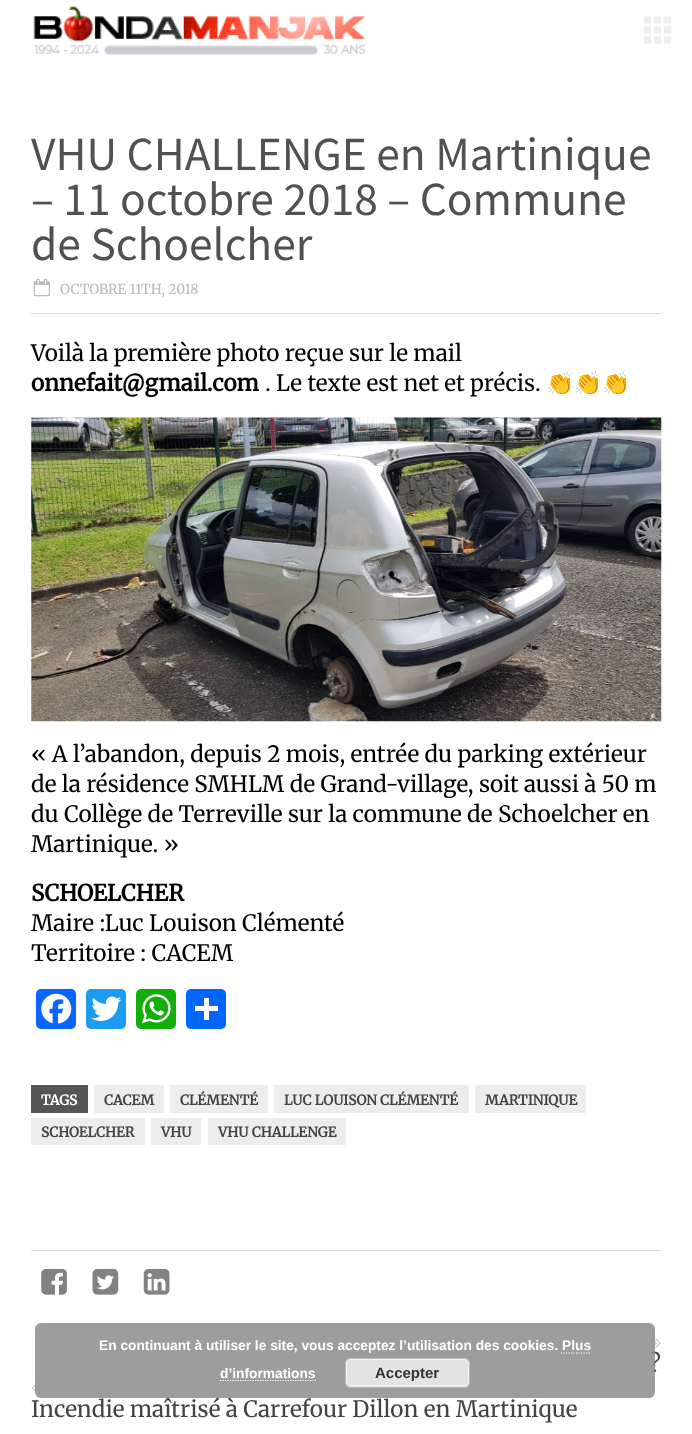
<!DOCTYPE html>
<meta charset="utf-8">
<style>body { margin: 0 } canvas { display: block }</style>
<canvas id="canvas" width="692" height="1434"></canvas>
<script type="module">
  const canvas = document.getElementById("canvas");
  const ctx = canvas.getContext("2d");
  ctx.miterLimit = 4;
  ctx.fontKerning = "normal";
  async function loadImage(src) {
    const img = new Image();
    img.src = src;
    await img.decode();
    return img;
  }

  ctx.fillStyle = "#ffffff";
  ctx.fillRect(0, 0, 692, 1434);
  ctx.drawImage(await loadImage("img1.png"), 33, 6, 333, 49);
  ctx.drawImage(await loadImage("img2.png"), 643, 16, 29, 28);
  ctx.fillStyle = "#dadada";
  ctx.fillRect(31, 313, 630, 1);
  ctx.font = "47.5px Source Sans Pro";
  ctx.fillStyle = "#515151";
  ctx.fillText("VHU CHALLENGE en Martinique", 31, 170);
  ctx.fillText("– 11 octobre 2018 – Commune", 31, 215);
  ctx.fillText("de Schoelcher", 31, 260);
  ctx.drawImage(await loadImage("img3.png"), 33, 278, 17, 19);
  ctx.font = "300 13.75px Merriweather";
  ctx.fillStyle = "#bcbcbc";
  ctx.fillText("OCTOBRE 11TH, 2018", 60, 294);
  ctx.font = "300 22.5px Merriweather";
  ctx.fillStyle = "#000000";
  ctx.fillText("Voilà la première photo reçue sur le mail", 31, 361);
  ctx.font = "bold 22.5px Merriweather";
  ctx.fillText("onnefait@gmail.com", 31, 391);
  ctx.font = "300 22.5px Merriweather";
  ctx.fillText(". Le texte est net et précis.", 265, 391);
  ctx.font = "22.5px Noto Color Emoji";
  ctx.fillText("👏👏👏", 546, 391);
  ctx.drawImage(await loadImage("img4.png"), 31, 417, 631, 305);
  ctx.font = "300 22.5px Merriweather";
  ctx.fillText("« A l’abandon, depuis 2 mois, entrée du parking extérieur", 31, 762);
  ctx.fillText("de la résidence SMHLM de Grand-village, soit aussi à 50 m", 31, 792);
  ctx.fillText("du Collège de Terreville sur la commune de Schoelcher en", 31, 822);
  ctx.fillText("Martinique. »", 31, 852);
  ctx.font = "bold 22.5px Merriweather";
  ctx.fillText("SCHOELCHER", 31, 901);
  ctx.font = "300 22.5px Merriweather";
  ctx.fillText("Maire :Luc Louison Clémenté", 31, 931);
  ctx.fillText("Territoire : CACEM", 31, 961);
  ctx.fillStyle = "#0866ff";
  ctx.beginPath();
  ctx.roundRect(36, 989, 40, 40, 5);
  ctx.fill();
  ctx.drawImage(await loadImage("img5.png"), 41, 993, 31, 31);
  ctx.fillStyle = "#1d9bf0";
  ctx.beginPath();
  ctx.roundRect(86, 989, 40, 40, 5);
  ctx.fill();
  ctx.drawImage(await loadImage("img6.png"), 91, 996, 31, 25);
  ctx.fillStyle = "#12af0a";
  ctx.beginPath();
  ctx.roundRect(136, 989, 40, 40, 5);
  ctx.fill();
  ctx.drawImage(await loadImage("img7.png"), 142, 994, 29, 30);
  ctx.fillStyle = "#0166ff";
  ctx.beginPath();
  ctx.roundRect(186, 989, 40, 40, 5);
  ctx.fill();
  ctx.fillStyle = "#ffffff";
  ctx.fillRect(204, 998, 5, 22);
  ctx.fillRect(195, 1006, 23, 5);
  ctx.fillStyle = "#555555";
  ctx.fillRect(31, 1085, 57, 28);
  ctx.font = "bold 13.75px Merriweather";
  ctx.fillStyle = "#ffffff";
  ctx.fillText("TAGS", 41, 1105);
  ctx.fillStyle = "#ededed";
  ctx.fillRect(94, 1085, 70, 28);
  ctx.fillStyle = "#444444";
  ctx.fillText("CACEM", 104, 1105);
  ctx.fillStyle = "#ededed";
  ctx.fillRect(170, 1085, 98, 28);
  ctx.fillStyle = "#444444";
  ctx.fillText("CLÉMENTÉ", 180, 1105);
  ctx.fillStyle = "#ededed";
  ctx.fillRect(274, 1085, 195, 28);
  ctx.fillStyle = "#444444";
  ctx.fillText("LUC LOUISON CLÉMENTÉ", 284, 1105);
  ctx.fillStyle = "#ededed";
  ctx.fillRect(475, 1085, 111, 28);
  ctx.fillStyle = "#444444";
  ctx.fillText("MARTINIQUE", 485, 1105);
  ctx.fillStyle = "#ededed";
  ctx.fillRect(31, 1118, 114, 27);
  ctx.fillStyle = "#444444";
  ctx.fillText("SCHOELCHER", 41, 1137);
  ctx.fillStyle = "#ededed";
  ctx.fillRect(151, 1118, 50, 27);
  ctx.fillStyle = "#444444";
  ctx.fillText("VHU", 161, 1137);
  ctx.fillStyle = "#ededed";
  ctx.fillRect(208, 1118, 138, 27);
  ctx.fillStyle = "#444444";
  ctx.fillText("VHU CHALLENGE", 218, 1137);
  ctx.fillStyle = "#dadada";
  ctx.fillRect(31, 1250, 630, 1);
  ctx.drawImage(await loadImage("img8.png"), 41, 1268, 26, 27);
  ctx.drawImage(await loadImage("img9.png"), 92, 1268, 27, 27);
  ctx.drawImage(await loadImage("img10.png"), 143, 1268, 27, 27);
  ctx.drawImage(await loadImage("img11.png"), 651, 1338, 10, 10);
  ctx.font = "300 22.5px Merriweather";
  ctx.fillStyle = "#444444";
  ctx.fillText("?", 650, 1372);
  ctx.drawImage(await loadImage("img12.png"), 31, 1383, 10, 10);
  ctx.fillText("Incendie maîtrisé à Carrefour Dillon en Martinique", 31, 1417);
  ctx.fillStyle = "rgba(140, 140, 140, 0.85)";
  ctx.beginPath();
  ctx.roundRect(35, 1323, 620, 75, 6);
  ctx.fill();
  ctx.font = "bold 13.75px Liberation Sans";
  ctx.fillStyle = "#ffffff";
  ctx.fillText("En continuant à utiliser le site, vous acceptez l’utilisation des cookies. Plus", 99, 1350);
  ctx.fillText("d’informations", 220, 1378);
  ctx.beginPath();
  ctx.moveTo(561, 1353);
  ctx.lineTo(591, 1353);
  ctx.strokeStyle = "#ffffff";
  ctx.lineWidth = 1.2;
  ctx.setLineDash([1.25, 1.25]);
  ctx.stroke();
  ctx.beginPath();
  ctx.moveTo(220, 1380.5);
  ctx.lineTo(316, 1380.5);
  ctx.stroke();
  ctx.fillStyle = "#e3e3e3";
  ctx.beginPath();
  ctx.roundRect(345, 1358, 125, 30, 6);
  ctx.fill();
  ctx.beginPath();
  ctx.roundRect(346.5, 1359.5, 122, 26, 4.5);
  ctx.strokeStyle = "#f6f6f6";
  ctx.lineWidth = 1;
  ctx.setLineDash([]);
  ctx.stroke();
  ctx.beginPath();
  ctx.roundRect(345.5, 1358.5, 124, 29, 5.5);
  ctx.strokeStyle = "#bbbbbb";
  ctx.stroke();
  ctx.font = "bold 15px Liberation Sans";
  ctx.fillStyle = "#333333";
  ctx.fillText("Accepter", 375, 1378);
</script>
